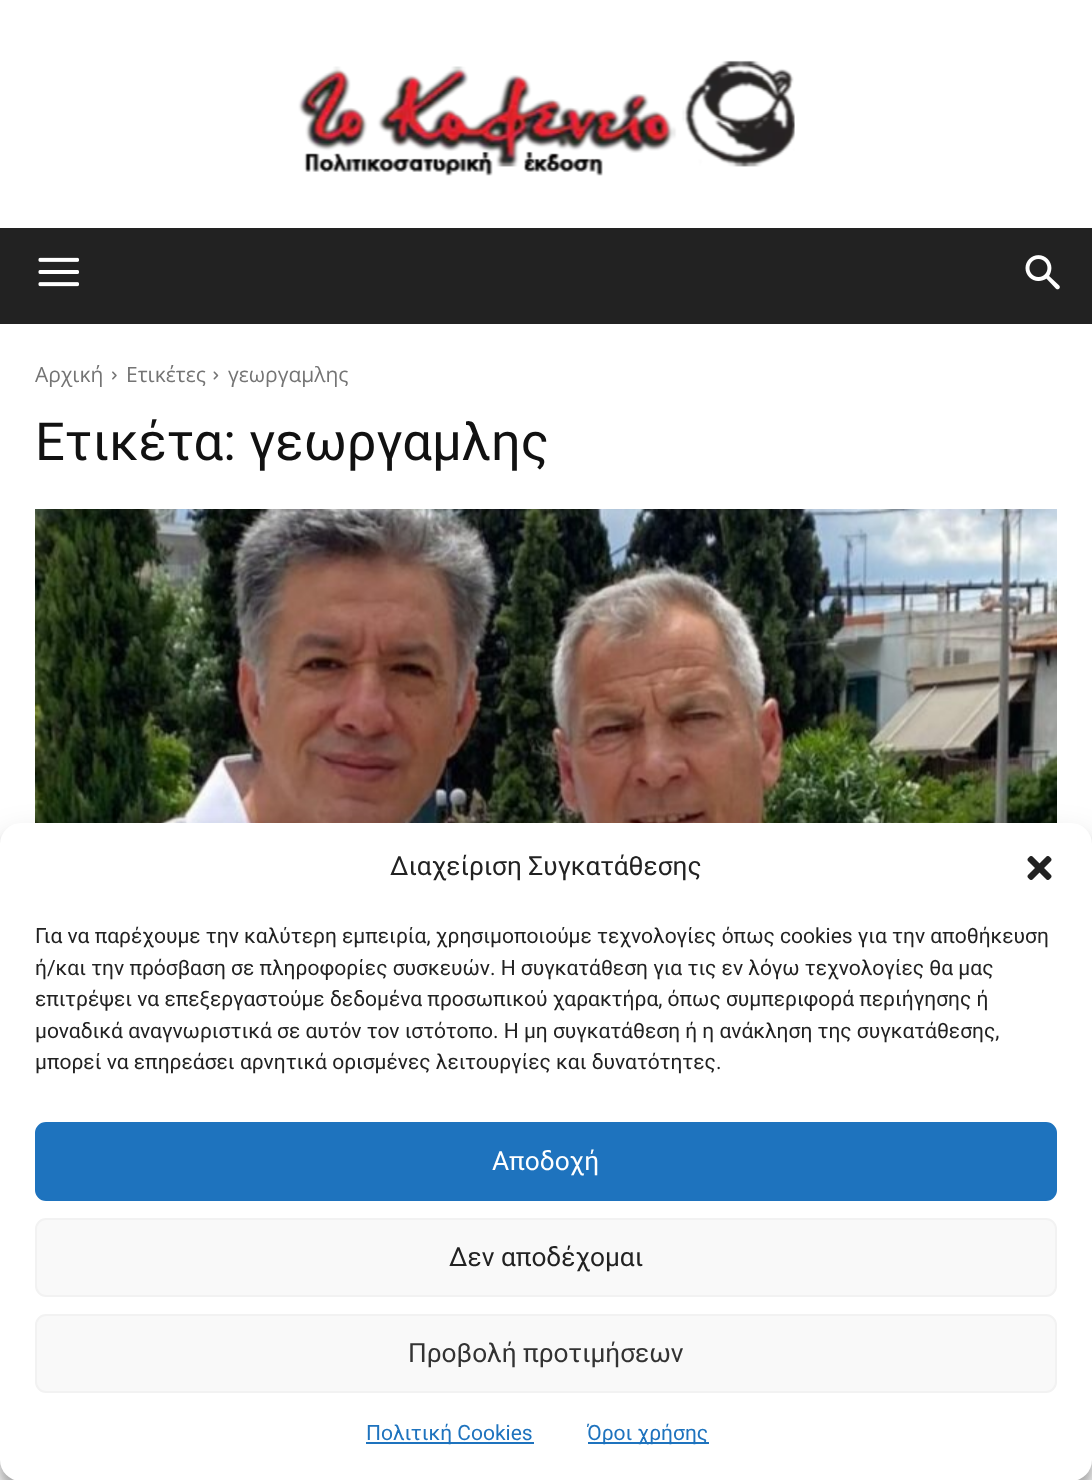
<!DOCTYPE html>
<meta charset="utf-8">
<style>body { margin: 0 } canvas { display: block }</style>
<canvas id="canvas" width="1092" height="1480"></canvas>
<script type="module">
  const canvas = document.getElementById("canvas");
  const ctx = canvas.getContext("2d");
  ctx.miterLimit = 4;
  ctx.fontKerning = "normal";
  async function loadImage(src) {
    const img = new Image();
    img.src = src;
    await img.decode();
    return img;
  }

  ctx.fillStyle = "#ffffff";
  ctx.fillRect(0, 0, 1092, 1480);
  ctx.drawImage(await loadImage("img1.png"), 298, 60, 497, 116);
  ctx.fillStyle = "#222222";
  ctx.fillRect(0, 228, 1092, 96);
  ctx.drawImage(await loadImage("img2.png"), 38, 257, 41, 30);
  ctx.drawImage(await loadImage("img3.png"), 1025, 255, 35, 35);
  ctx.font = "21px Open Sans";
  ctx.fillStyle = "#747474";
  ctx.fillText("Αρχική", 35, 382);
  ctx.drawImage(await loadImage("img4.png"), 112, 371, 5, 9);
  ctx.fillText("Ετικέτες", 126, 382);
  ctx.drawImage(await loadImage("img5.png"), 213, 371, 6, 9);
  ctx.fillText("γεωργαμλης", 228, 382);
  ctx.font = "52.5px Roboto";
  ctx.fillStyle = "#111111";
  ctx.fillText("Ετικέτα: γεωργαμλης", 35, 460);
  ctx.drawImage(await loadImage("img6.png"), 35, 509, 1022, 314);
  ctx.fillStyle = "rgba(0, 0, 0, 0.23)";
  ctx.filter = "blur(5px)";
  ctx.beginPath();
  ctx.roundRect(0, 833, 1092, 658, 21);
  ctx.fill();
  ctx.filter = "none";
  ctx.fillStyle = "rgba(0, 0, 0, 0.19)";
  ctx.filter = "blur(17.5px)";
  ctx.beginPath();
  ctx.roundRect(0, 840, 1092, 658, 21);
  ctx.fill();
  ctx.filter = "none";
  ctx.fillStyle = "#ffffff";
  ctx.beginPath();
  ctx.roundRect(0, 823, 1092, 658, 21);
  ctx.fill();
  ctx.font = "26.25px Roboto";
  ctx.fillStyle = "#222222";
  ctx.fillText("Διαχείριση Συγκατάθεσης", 390, 875);
  ctx.drawImage(await loadImage("img7.png"), 1027, 856, 25, 24);
  ctx.font = "21px Roboto";
  ctx.fillText("Για να παρέχουμε την καλύτερη εμπειρία, χρησιμοποιούμε τεχνολογίες όπως cookies για την αποθήκευση", 35, 943);
  ctx.fillText("ή/και την πρόσβαση σε πληροφορίες συσκευών. Η συγκατάθεση για τις εν λόγω τεχνολογίες θα μας", 35, 975);
  ctx.fillText("επιτρέψει να επεξεργαστούμε δεδομένα προσωπικού χαρακτήρα, όπως συμπεριφορά περιήγησης ή", 35, 1006);
  ctx.fillText("μοναδικά αναγνωριστικά σε αυτόν τον ιστότοπο. Η μη συγκατάθεση ή η ανάκληση της συγκατάθεσης,", 35, 1038);
  ctx.fillText("μπορεί να επηρεάσει αρνητικά ορισμένες λειτουργίες και δυνατότητες.", 35, 1069);
  ctx.fillStyle = "#1e73be";
  ctx.beginPath();
  ctx.roundRect(36, 1123, 1020, 77, 10);
  ctx.fill();
  ctx.strokeStyle = "#1e73be";
  ctx.lineWidth = 2;
  ctx.stroke();
  ctx.font = "26.25px Roboto";
  ctx.fillStyle = "#ffffff";
  ctx.fillText("Αποδοχή", 492, 1170);
  ctx.fillStyle = "#f9f9f9";
  ctx.beginPath();
  ctx.roundRect(36, 1219, 1020, 77, 10);
  ctx.fill();
  ctx.strokeStyle = "#f2f2f2";
  ctx.stroke();
  ctx.fillStyle = "#222222";
  ctx.fillText("Δεν αποδέχομαι", 449, 1266);
  ctx.fillStyle = "#f9f9f9";
  ctx.beginPath();
  ctx.roundRect(36, 1315, 1020, 77, 10);
  ctx.fill();
  ctx.stroke();
  ctx.fillStyle = "#333333";
  ctx.fillText("Προβολή προτιμήσεων", 408, 1362);
  ctx.fillStyle = "#1e73be";
  ctx.fillRect(366, 1442, 168, 2);
  ctx.font = "21px Roboto";
  ctx.fillText("Πολιτική Cookies", 366, 1440);
  ctx.fillRect(588, 1442, 121, 2);
  ctx.fillText("Όροι χρήσης", 587, 1440);
</script>
